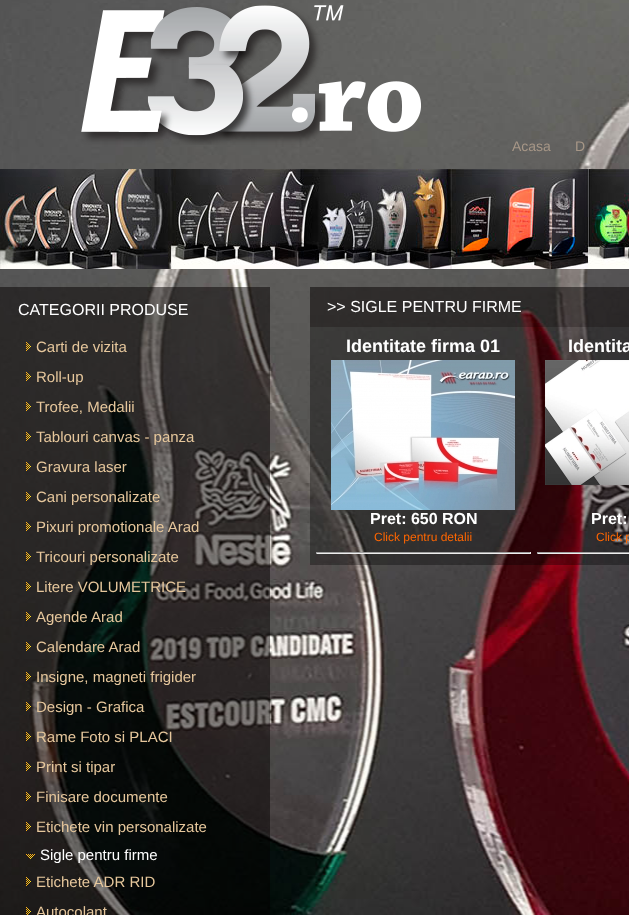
<!DOCTYPE html>
<meta charset="utf-8">
<style>body { margin: 0 } canvas { display: block }</style>
<canvas id="canvas" width="629" height="915"></canvas>
<script type="module">
  const canvas = document.getElementById("canvas");
  const ctx = canvas.getContext("2d");
  ctx.miterLimit = 4;
  ctx.fontKerning = "normal";
  async function loadImage(src) {
    const img = new Image();
    img.src = src;
    await img.decode();
    return img;
  }

  ctx.fillStyle = "#ffffff";
  ctx.fillRect(0, 0, 629, 915);
  ctx.drawImage(await loadImage("img1.png"), 0, 0, 629, 915);
  ctx.drawImage(await loadImage("img2.png"), 81, 5, 340, 140);
  ctx.font = "14px Liberation Sans";
  ctx.fillStyle = "#a79787";
  ctx.fillText("Acasa", 512, 151);
  ctx.fillText("D", 575, 151);
  ctx.drawImage(await loadImage("img3.png"), 0, 169, 629, 100);
  ctx.fillStyle = "rgba(4, 0, 0, 0.5)";
  ctx.fillRect(0, 287, 270, 45);
  ctx.font = "16px Liberation Sans";
  ctx.fillStyle = "#ffffff";
  ctx.fillText("CATEGORII PRODUSE", 18, 315);
  ctx.fillStyle = "rgba(4, 0, 0, 0.5)";
  ctx.fillRect(0, 332, 270, 583);
  ctx.drawImage(await loadImage("img4.png"), 26, 342, 5, 9);
  ctx.font = "15px Liberation Sans";
  ctx.fillStyle = "#e6c79c";
  ctx.fillText("Carti de vizita", 36, 352);
  ctx.drawImage(await loadImage("img5.png"), 26, 372, 5, 9);
  ctx.fillText("Roll-up", 36, 382);
  ctx.drawImage(await loadImage("img6.png"), 26, 402, 5, 9);
  ctx.fillText("Trofee, Medalii", 36, 412);
  ctx.drawImage(await loadImage("img7.png"), 26, 432, 5, 9);
  ctx.fillText("Tablouri canvas - panza", 36, 442);
  ctx.drawImage(await loadImage("img8.png"), 26, 462, 5, 9);
  ctx.fillText("Gravura laser", 36, 472);
  ctx.drawImage(await loadImage("img9.png"), 26, 492, 5, 9);
  ctx.fillText("Cani personalizate", 36, 502);
  ctx.drawImage(await loadImage("img10.png"), 26, 522, 5, 9);
  ctx.fillText("Pixuri promotionale Arad", 36, 532);
  ctx.drawImage(await loadImage("img11.png"), 26, 552, 5, 9);
  ctx.fillText("Tricouri personalizate", 36, 562);
  ctx.drawImage(await loadImage("img12.png"), 26, 582, 5, 9);
  ctx.fillText("Litere VOLUMETRICE", 36, 592);
  ctx.drawImage(await loadImage("img13.png"), 26, 612, 5, 9);
  ctx.fillText("Agende Arad", 36, 622);
  ctx.drawImage(await loadImage("img14.png"), 26, 642, 5, 9);
  ctx.fillText("Calendare Arad", 36, 652);
  ctx.drawImage(await loadImage("img15.png"), 26, 672, 5, 9);
  ctx.fillText("Insigne, magneti frigider", 36, 682);
  ctx.drawImage(await loadImage("img16.png"), 26, 702, 5, 9);
  ctx.fillText("Design - Grafica", 36, 712);
  ctx.drawImage(await loadImage("img17.png"), 26, 732, 5, 9);
  ctx.fillText("Rame Foto si PLACI", 36, 742);
  ctx.drawImage(await loadImage("img18.png"), 26, 762, 5, 9);
  ctx.fillText("Print si tipar", 36, 772);
  ctx.drawImage(await loadImage("img19.png"), 26, 792, 5, 9);
  ctx.fillText("Finisare documente", 36, 802);
  ctx.drawImage(await loadImage("img20.png"), 26, 822, 5, 9);
  ctx.fillText("Etichete vin personalizate", 36, 832);
  ctx.drawImage(await loadImage("img21.png"), 26, 854, 9, 5);
  ctx.fillStyle = "#ffffff";
  ctx.fillText("Sigle pentru firme", 40, 860);
  ctx.drawImage(await loadImage("img22.png"), 26, 877, 5, 9);
  ctx.fillStyle = "#e6c79c";
  ctx.fillText("Etichete ADR RID", 36, 887);
  ctx.drawImage(await loadImage("img23.png"), 26, 907, 5, 8);
  ctx.fillText("Autocolant", 36, 917);
  ctx.fillStyle = "rgba(4, 0, 0, 0.5)";
  ctx.fillRect(310, 287, 319, 40);
  ctx.font = "16px Liberation Sans";
  ctx.fillStyle = "#ffffff";
  ctx.fillText(">> SIGLE PENTRU FIRME", 327, 312);
  ctx.fillStyle = "rgba(0, 0, 0, 0.34)";
  ctx.fillRect(310, 327, 319, 238);
  ctx.font = "bold 18px Liberation Sans";
  ctx.fillStyle = "#ffffff";
  ctx.fillText("Identitate firma 01", 346, 352);
  ctx.drawImage(await loadImage("img24.png"), 331, 360, 184, 150);
  ctx.font = "bold 16px Liberation Sans";
  ctx.fillText("Pret: 650 RON", 370, 524);
  ctx.font = "12px Liberation Sans";
  ctx.fillStyle = "#ff6600";
  ctx.fillText("Click pentru detalii", 374, 541);
  ctx.fillStyle = "#9f9f9f";
  ctx.fillRect(316, 552, 215, 1);
  ctx.fillStyle = "#eeeeee";
  ctx.fillRect(530, 552, 1, 2);
  ctx.fillRect(316, 553, 215, 1);
  ctx.fillStyle = "#9f9f9f";
  ctx.fillRect(316, 552, 1, 2);
  ctx.font = "bold 18px Liberation Sans";
  ctx.fillStyle = "#ffffff";
  ctx.fillText("Identita", 568, 352);
  ctx.drawImage(await loadImage("img25.png"), 545, 360, 84, 125);
  ctx.font = "bold 16px Liberation Sans";
  ctx.fillText("Pret:", 591, 524);
  ctx.font = "12px Liberation Sans";
  ctx.fillStyle = "#ff6600";
  ctx.fillText("Click p", 596, 541);
  ctx.fillStyle = "#9f9f9f";
  ctx.fillRect(537, 552, 92, 1);
  ctx.fillStyle = "#eeeeee";
  ctx.fillRect(537, 553, 92, 1);
  ctx.fillStyle = "#9f9f9f";
  ctx.fillRect(537, 552, 1, 2);
</script>
